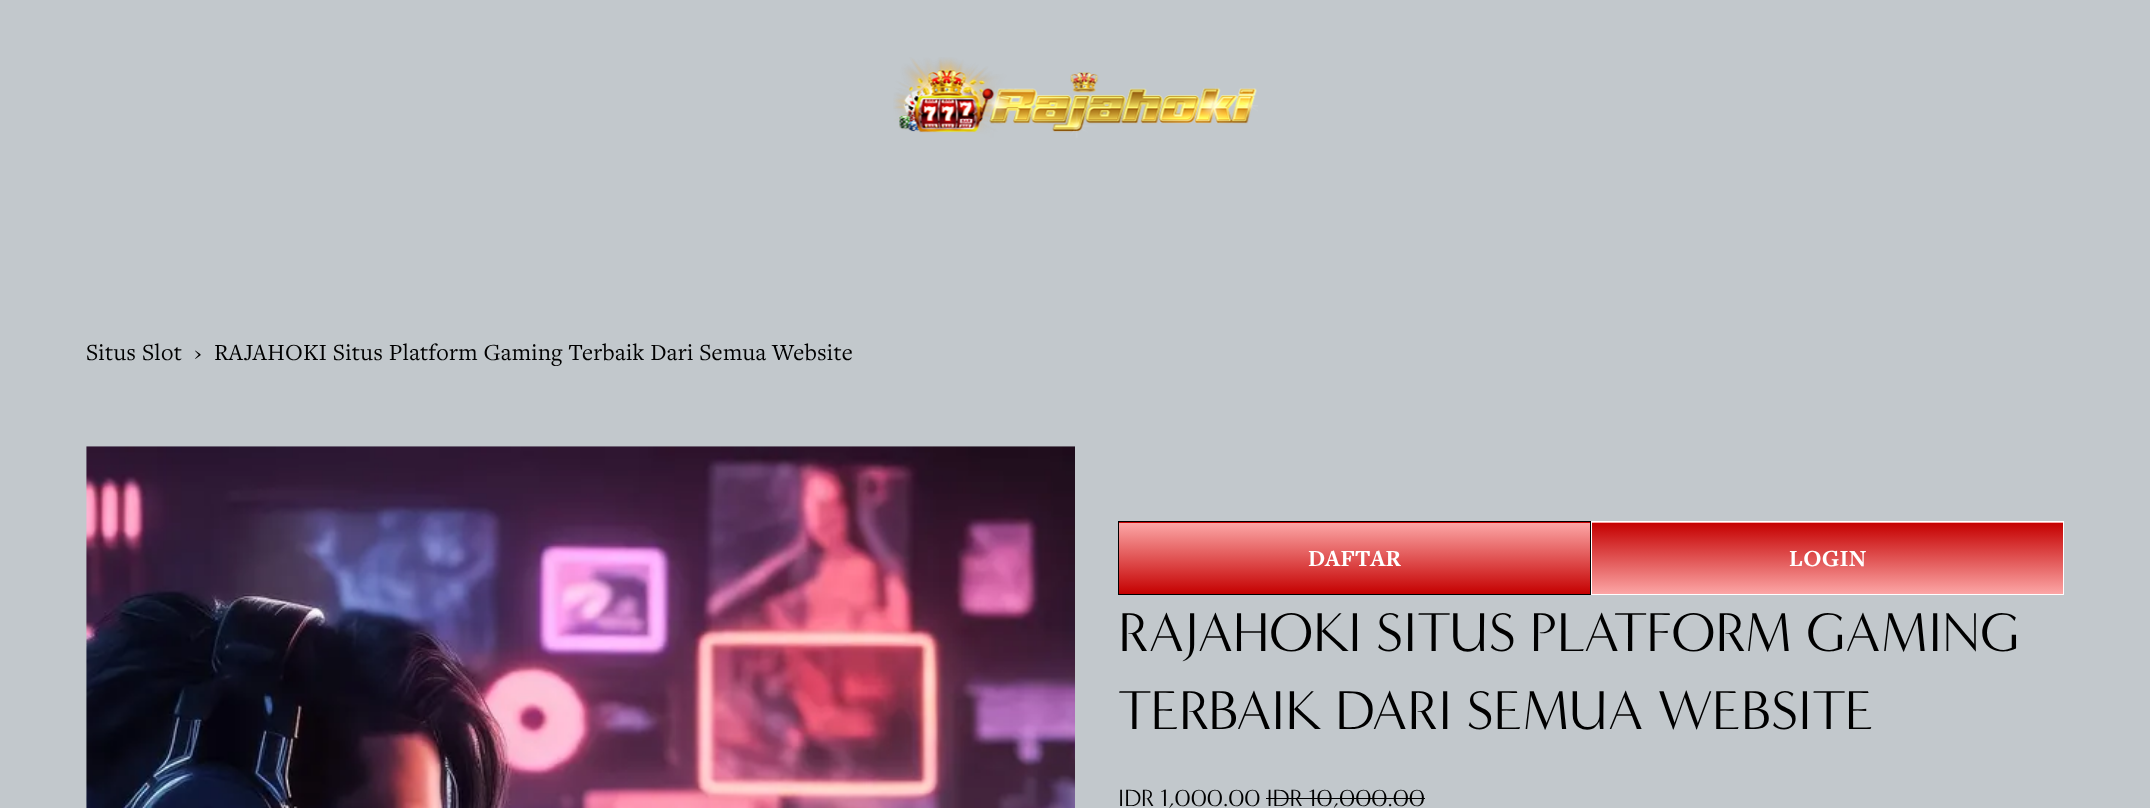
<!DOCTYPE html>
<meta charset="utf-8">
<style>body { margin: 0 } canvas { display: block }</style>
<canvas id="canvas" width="2150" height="808"></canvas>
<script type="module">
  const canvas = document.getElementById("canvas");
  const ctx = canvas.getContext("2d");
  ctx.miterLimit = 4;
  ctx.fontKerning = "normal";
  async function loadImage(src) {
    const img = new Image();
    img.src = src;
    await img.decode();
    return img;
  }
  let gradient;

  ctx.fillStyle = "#c2c8cc";
  ctx.fillRect(0, 0, 2150, 808);
  ctx.drawImage(await loadImage("img1.png"), 893, 57, 365, 81);
  ctx.letterSpacing = "0.25px";
  ctx.font = "24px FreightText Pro";
  ctx.fillStyle = "#000000";
  ctx.fillText("Situs Slot", 86, 360);
  ctx.fillText("›", 194, 360);
  ctx.fillText("RAJAHOKI Situs Platform Gaming Terbaik Dari Semua Website", 214, 360);
  ctx.drawImage(await loadImage("img2.png"), 86, 446, 989, 362);
  gradient = ctx.createLinearGradient(1354, 451, 1354, 523);
  gradient.addColorStop(0, "#fca6a6");
  gradient.addColorStop(1, "#c50000");
  ctx.fillStyle = gradient;
  ctx.fillRect(1118, 522, 473, 1);
  gradient = ctx.createLinearGradient(1354, 523, 1354, 594);
  gradient.addColorStop(0, "#fca6a6");
  gradient.addColorStop(1, "#c50000");
  ctx.fillStyle = gradient;
  ctx.fillRect(1119, 523, 471, 71);
  ctx.strokeStyle = "#000000";
  ctx.strokeRect(1118.5, 521.5, 472, 73);
  ctx.font = "bold 24px FreightText Pro";
  ctx.fillStyle = "#ffffff";
  ctx.fillText("DAFTAR", 1308, 566);
  gradient = ctx.createLinearGradient(1828, 451, 1828, 523);
  gradient.addColorStop(0, "#c50000");
  gradient.addColorStop(1, "#fca6a6");
  ctx.fillStyle = gradient;
  ctx.fillRect(1591, 522, 473, 1);
  gradient = ctx.createLinearGradient(1828, 523, 1828, 594);
  gradient.addColorStop(0, "#c50000");
  gradient.addColorStop(1, "#fca6a6");
  ctx.fillStyle = gradient;
  ctx.fillRect(1592, 523, 471, 71);
  ctx.strokeStyle = "#ffffff";
  ctx.strokeRect(1591.5, 521.5, 472, 73);
  ctx.fillStyle = "#ffffff";
  ctx.fillText("LOGIN", 1789, 566);
  ctx.letterSpacing = "0px";
  ctx.font = "56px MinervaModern";
  ctx.fillStyle = "#000000";
  ctx.fillText("RAJAHOKI SITUS PLATFORM GAMING", 1118, 651);
  ctx.fillText("TERBAIK DARI SEMUA WEBSITE", 1118, 729);
  ctx.font = "24px MinervaModern";
  ctx.fillText("IDR 1,000.00 IDR 10,000.00", 1118, 806);
  ctx.fillRect(1266, 798, 159, 1);
</script>
